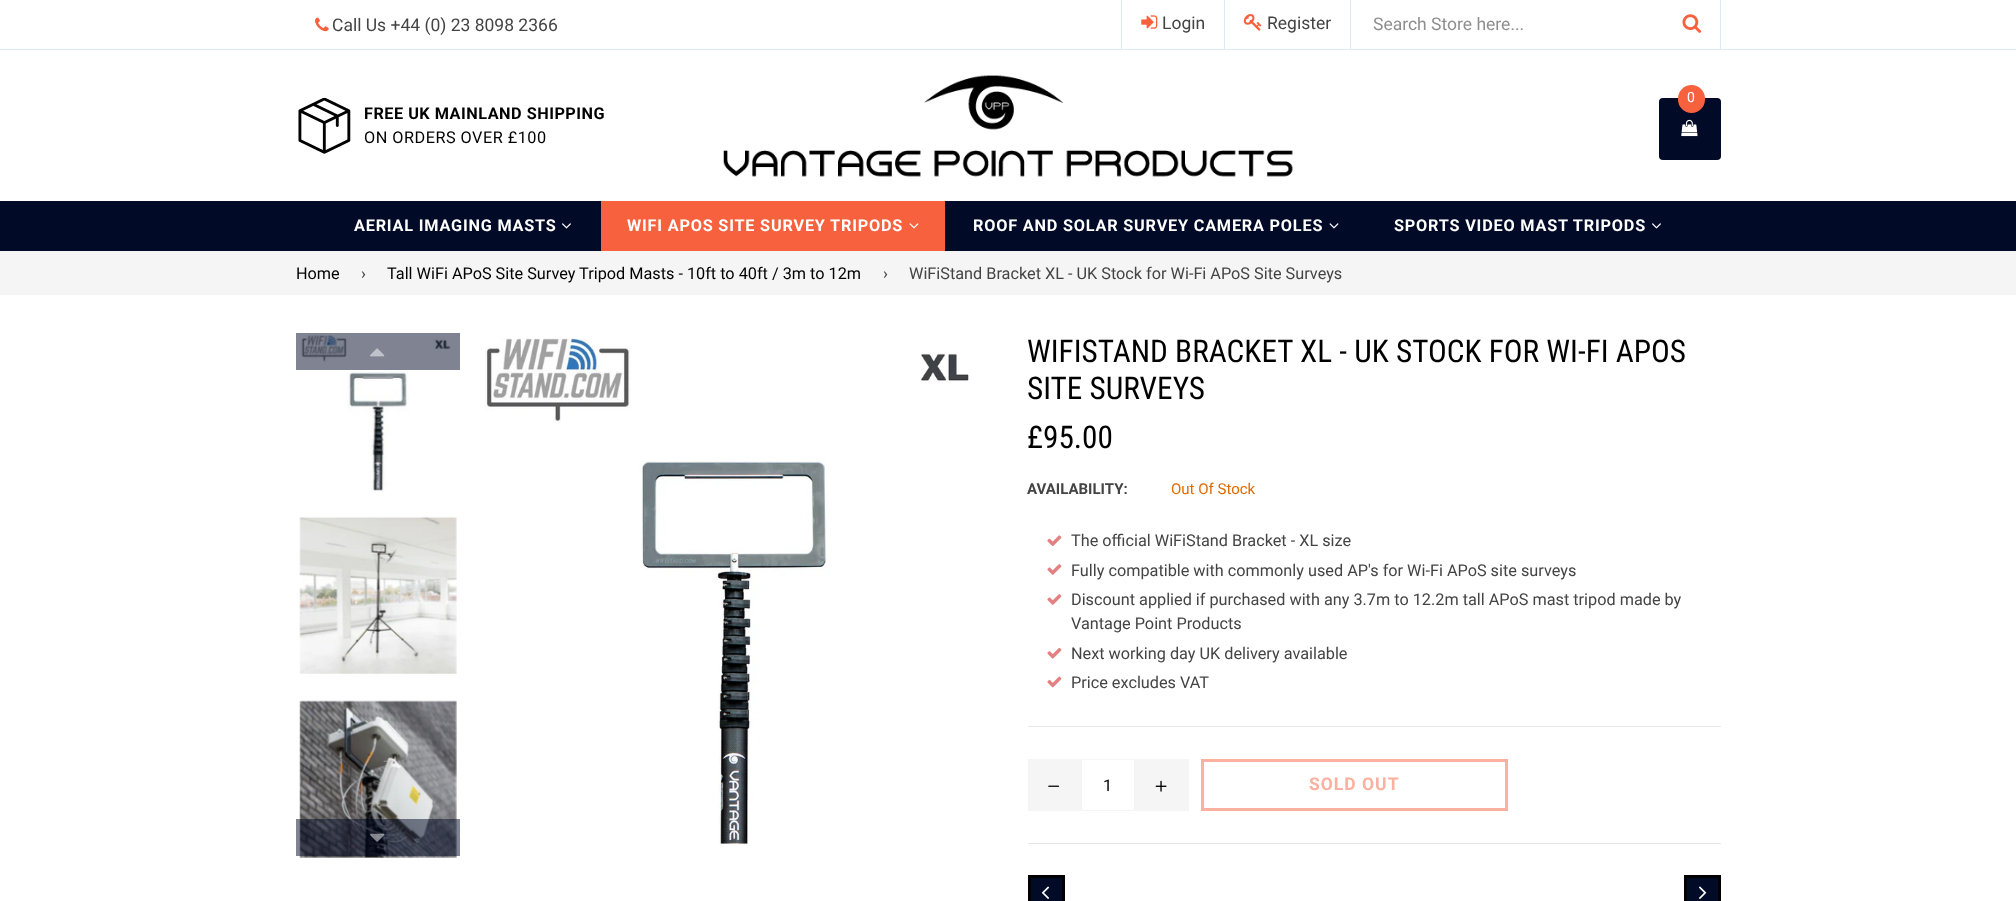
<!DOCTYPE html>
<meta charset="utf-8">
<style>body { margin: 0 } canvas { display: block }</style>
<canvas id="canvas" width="2016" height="901"></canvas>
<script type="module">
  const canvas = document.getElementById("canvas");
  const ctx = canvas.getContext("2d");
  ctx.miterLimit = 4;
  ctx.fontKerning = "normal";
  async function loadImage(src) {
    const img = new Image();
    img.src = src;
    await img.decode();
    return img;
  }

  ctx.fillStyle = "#ffffff";
  ctx.fillRect(0, 0, 2016, 901);
  ctx.fillStyle = "#dceaf6";
  ctx.fillRect(0, 49, 2016, 1);
  ctx.drawImage(await loadImage("img1.png"), 315, 17, 14, 15);
  ctx.font = "17.5px Roboto";
  ctx.fillStyle = "#444444";
  ctx.fillText("Call Us +44 (0) 23 8098 2366", 332, 31);
  ctx.fillStyle = "#dceaf6";
  ctx.fillRect(1121, 0, 1, 50);
  ctx.drawImage(await loadImage("img2.png"), 1141, 15, 17, 14);
  ctx.fillStyle = "#444444";
  ctx.fillText("Login", 1162, 29);
  ctx.fillStyle = "#dceaf6";
  ctx.fillRect(1224, 0, 1, 50);
  ctx.drawImage(await loadImage("img3.png"), 1243, 14, 19, 17);
  ctx.fillStyle = "#444444";
  ctx.fillText("Register", 1267, 29);
  ctx.fillStyle = "#dceaf6";
  ctx.fillRect(1720, 0, 1, 50);
  ctx.fillRect(1350, 0, 1, 50);
  ctx.fillStyle = "#8f8f8f";
  ctx.fillText("Search Store here...", 1373, 30);
  ctx.drawImage(await loadImage("img4.png"), 1682, 14, 20, 19);
  ctx.drawImage(await loadImage("img5.png"), 723, 75, 570, 102);
  ctx.fillStyle = "#010a26";
  ctx.beginPath();
  ctx.roundRect(1659, 98, 62, 62, 4);
  ctx.fill();
  ctx.fillStyle = "#f8613e";
  ctx.beginPath();
  ctx.roundRect(1678, 85, 27, 28, 13.5);
  ctx.fill();
  ctx.font = "14px Roboto";
  ctx.fillStyle = "#ffffff";
  ctx.fillText("0", 1687, 102);
  ctx.drawImage(await loadImage("img6.png"), 1681, 119, 17, 18);
  ctx.drawImage(await loadImage("img7.png"), 298, 98, 53, 56);
  ctx.letterSpacing = "0.5px";
  ctx.font = "bold 16.25px Roboto";
  ctx.fillStyle = "#000000";
  ctx.fillText("FREE UK MAINLAND SHIPPING", 364, 119);
  ctx.font = "16.25px Roboto";
  ctx.fillText("ON ORDERS OVER £100", 364, 143);
  ctx.fillStyle = "#010a26";
  ctx.fillRect(0, 201, 2016, 50);
  ctx.letterSpacing = "0.8px";
  ctx.font = "bold 16.25px Roboto";
  ctx.fillStyle = "#ffffff";
  ctx.fillText("AERIAL IMAGING MASTS", 354, 231);
  ctx.drawImage(await loadImage("img8.png"), 562, 223, 9, 6);
  ctx.fillStyle = "#f8613e";
  ctx.fillRect(601, 201, 344, 50);
  ctx.fillStyle = "#ffffff";
  ctx.fillText("WIFI APOS SITE SURVEY TRIPODS", 627, 231);
  ctx.drawImage(await loadImage("img9.png"), 909, 223, 10, 6);
  ctx.fillText("ROOF AND SOLAR SURVEY CAMERA POLES", 973, 231);
  ctx.drawImage(await loadImage("img10.png"), 1329, 223, 10, 6);
  ctx.fillText("SPORTS VIDEO MAST TRIPODS", 1394, 231);
  ctx.drawImage(await loadImage("img8.png"), 1652, 223, 9, 6);
  ctx.fillStyle = "#f5f5f5";
  ctx.fillRect(0, 251, 2016, 44);
  ctx.letterSpacing = "0px";
  ctx.font = "16.25px Roboto";
  ctx.fillStyle = "#000000";
  ctx.fillText("Home", 296, 279);
  ctx.fillStyle = "#444444";
  ctx.fillText("›", 361, 279);
  ctx.fillStyle = "#000000";
  ctx.fillText("Tall WiFi APoS Site Survey Tripod Masts - 10ft to 40ft / 3m to 12m", 387, 279);
  ctx.fillStyle = "#444444";
  ctx.fillText("›", 883, 279);
  ctx.fillText("WiFiStand Bracket XL - UK Stock for Wi-Fi APoS Site Surveys", 909, 279);
  ctx.drawImage(await loadImage("img12.png"), 301, 334, 150, 157);
  ctx.fillStyle = "rgba(1, 10, 38, 0.5)";
  ctx.fillRect(296, 333, 164, 37);
  ctx.drawImage(await loadImage("img11.png"), 370, 348, 15, 9);
  ctx.drawImage(await loadImage("img13.png"), 299, 516, 158, 158);
  ctx.drawImage(await loadImage("img14.png"), 299, 700, 158, 158);
  ctx.fillRect(296, 819, 164, 37);
  ctx.drawImage(await loadImage("img15.png"), 370, 833, 15, 9);
  ctx.drawImage(await loadImage("img16.png"), 485, 338, 484, 506);
  ctx.font = "31.25px Roboto Condensed";
  ctx.fillStyle = "#000000";
  ctx.fillText("WIFISTAND BRACKET XL - UK STOCK FOR WI-FI APOS", 1027, 362);
  ctx.fillText("SITE SURVEYS", 1027, 399);
  ctx.fillText("£95.00", 1027, 448);
  ctx.font = "bold 15px Roboto";
  ctx.fillStyle = "#444444";
  ctx.fillText("AVAILABILITY:", 1027, 494);
  ctx.font = "15px Roboto";
  ctx.fillStyle = "#e06900";
  ctx.fillText("Out Of Stock", 1171, 494);
  ctx.drawImage(await loadImage("img17.png"), 1047, 535, 15, 12);
  ctx.font = "16.25px Roboto";
  ctx.fillStyle = "#444444";
  ctx.fillText("The official WiFiStand Bracket - XL size", 1071, 546);
  ctx.drawImage(await loadImage("img18.png"), 1047, 564, 15, 11);
  ctx.fillText("Fully compatible with commonly used AP's for Wi-Fi APoS site surveys", 1071, 576);
  ctx.drawImage(await loadImage("img18.png"), 1047, 594, 15, 11);
  ctx.fillText("Discount applied if purchased with any 3.7m to 12.2m tall APoS mast tripod made by", 1071, 605);
  ctx.fillText("Vantage Point Products", 1071, 629);
  ctx.drawImage(await loadImage("img19.png"), 1047, 647, 15, 12);
  ctx.fillText("Next working day UK delivery available", 1071, 659);
  ctx.drawImage(await loadImage("img20.png"), 1047, 676, 15, 12);
  ctx.fillText("Price excludes VAT", 1071, 688);
  ctx.fillStyle = "#e7e7e7";
  ctx.fillRect(1028, 726, 693, 1);
  ctx.fillStyle = "#f5f5f5";
  ctx.fillRect(1028, 759, 53, 52);
  ctx.drawImage(await loadImage("img21.png"), 1048, 785, 12, 2);
  ctx.strokeStyle = "#f5f5f5";
  ctx.strokeRect(1081.5, 759.5, 53, 51);
  ctx.fillStyle = "#000000";
  ctx.fillText("1", 1103, 791);
  ctx.fillStyle = "#f5f5f5";
  ctx.fillRect(1135, 759, 54, 52);
  ctx.drawImage(await loadImage("img22.png"), 1155, 780, 12, 12);
  ctx.strokeStyle = "#fcb09f";
  ctx.lineWidth = 3;
  ctx.strokeRect(1202.5, 760.5, 304, 49);
  ctx.letterSpacing = "1px";
  ctx.font = "bold 17.5px Roboto";
  ctx.fillStyle = "#fcb09f";
  ctx.fillText("SOLD OUT", 1309, 790);
  ctx.fillStyle = "#e7e7e7";
  ctx.fillRect(1028, 843, 693, 1);
  ctx.fillStyle = "#010a26";
  ctx.beginPath();
  ctx.rect(1029.5, 876.5, 34, 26);
  ctx.fill();
  ctx.strokeStyle = "#000000";
  ctx.stroke();
  ctx.drawImage(await loadImage("img23.png"), 1041, 886, 9, 13);
  ctx.beginPath();
  ctx.rect(1685.5, 876.5, 34, 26);
  ctx.fill();
  ctx.stroke();
  ctx.drawImage(await loadImage("img24.png"), 1699, 886, 8, 13);
</script>
